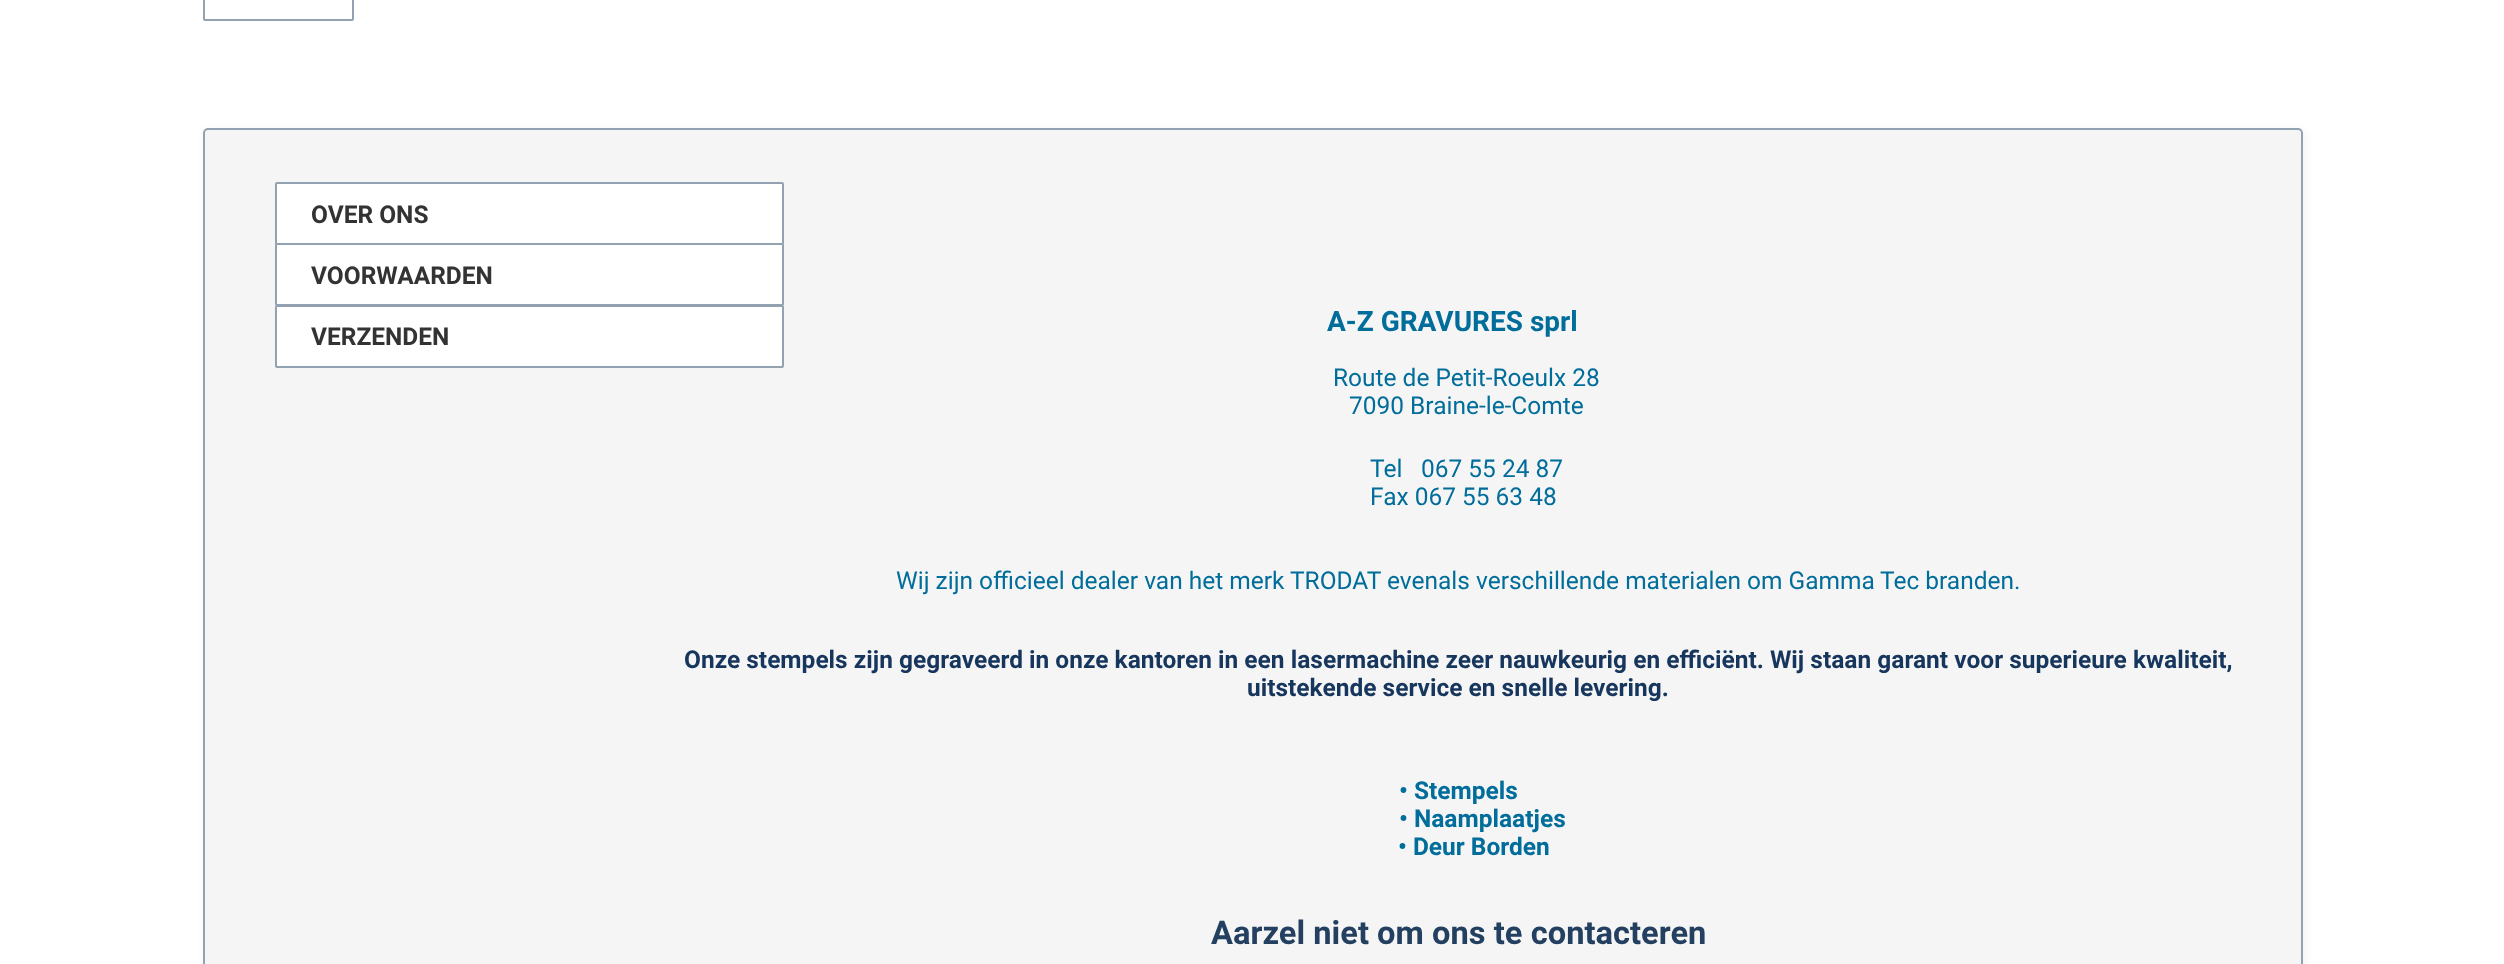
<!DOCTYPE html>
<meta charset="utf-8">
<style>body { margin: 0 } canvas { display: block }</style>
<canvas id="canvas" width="2504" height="964"></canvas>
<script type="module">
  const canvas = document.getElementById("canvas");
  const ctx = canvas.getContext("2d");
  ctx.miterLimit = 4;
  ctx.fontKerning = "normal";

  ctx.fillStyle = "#ffffff";
  ctx.fillRect(0, 0, 2504, 964);
  ctx.beginPath();
  ctx.roundRect(204, -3, 149, 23, 1);
  ctx.strokeStyle = "#93a2b1";
  ctx.lineWidth = 2;
  ctx.stroke();
  ctx.fillStyle = "rgba(0, 0, 0, 0.05)";
  ctx.filter = "blur(5px)";
  ctx.beginPath();
  ctx.roundRect(205, 130, 2100, 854, 5);
  ctx.fill();
  ctx.filter = "none";
  ctx.fillStyle = "#f5f5f5";
  ctx.beginPath();
  ctx.roundRect(204, 129, 2098, 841, 4);
  ctx.fill();
  ctx.stroke();
  ctx.fillStyle = "#ffffff";
  ctx.beginPath();
  ctx.roundRect(276, 183, 507, 61, 1);
  ctx.fill();
  ctx.stroke();
  ctx.font = "bold 24.5px Roboto";
  ctx.fillStyle = "#333333";
  ctx.fillText("OVER ONS", 311, 223);
  ctx.fillStyle = "#ffffff";
  ctx.beginPath();
  ctx.roundRect(276, 244, 507, 61, 1);
  ctx.fill();
  ctx.stroke();
  ctx.fillStyle = "#333333";
  ctx.fillText("VOORWAARDEN", 311, 284);
  ctx.fillStyle = "#ffffff";
  ctx.beginPath();
  ctx.roundRect(276, 306, 507, 61, 1);
  ctx.fill();
  ctx.stroke();
  ctx.fillStyle = "#333333";
  ctx.fillText("VERZENDEN", 311, 345);
  ctx.font = "bold 28px Roboto";
  ctx.fillStyle = "#006d9b";
  ctx.fillText("A-Z GRAVURES sprl", 1327, 331);
  ctx.font = "24.5px Roboto";
  ctx.fillText("Route de Petit-Roeulx 28", 1333, 386);
  ctx.fillText("7090 Braine-le-Comte", 1349, 414);
  ctx.fillText("Tel", 1370, 477);
  ctx.fillText("067 55 24 87", 1421, 477);
  ctx.fillText("Fax 067 55 63 48", 1370, 505);
  ctx.fillText("Wij zijn officieel dealer van het merk", 896, 589);
  ctx.fillText("TRODAT", 1290, 589);
  ctx.fillText("evenals verschillende materialen om Gamma", 1387, 589);
  ctx.fillText("Tec branden.", 1880, 589);
  ctx.font = "bold 24.5px Roboto";
  ctx.fillStyle = "#17365d";
  ctx.fillText("Onze stempels zijn gegraveerd in onze kantoren in een lasermachine zeer nauwkeurig en efficiënt. Wij staan garant voor superieure kwaliteit,", 684, 668);
  ctx.fillText("uitstekende service en snelle levering.", 1247, 696);
  ctx.fillStyle = "#006d9b";
  ctx.fillText("• Stempels", 1399, 799);
  ctx.fillText("• Naamplaatjes", 1399, 827);
  ctx.fillText("• Deur Borden", 1398, 855);
  ctx.font = "bold 32.7px Roboto";
  ctx.fillStyle = "#244061";
  ctx.fillText("Aarzel niet om ons te contacteren", 1211, 944);
</script>
